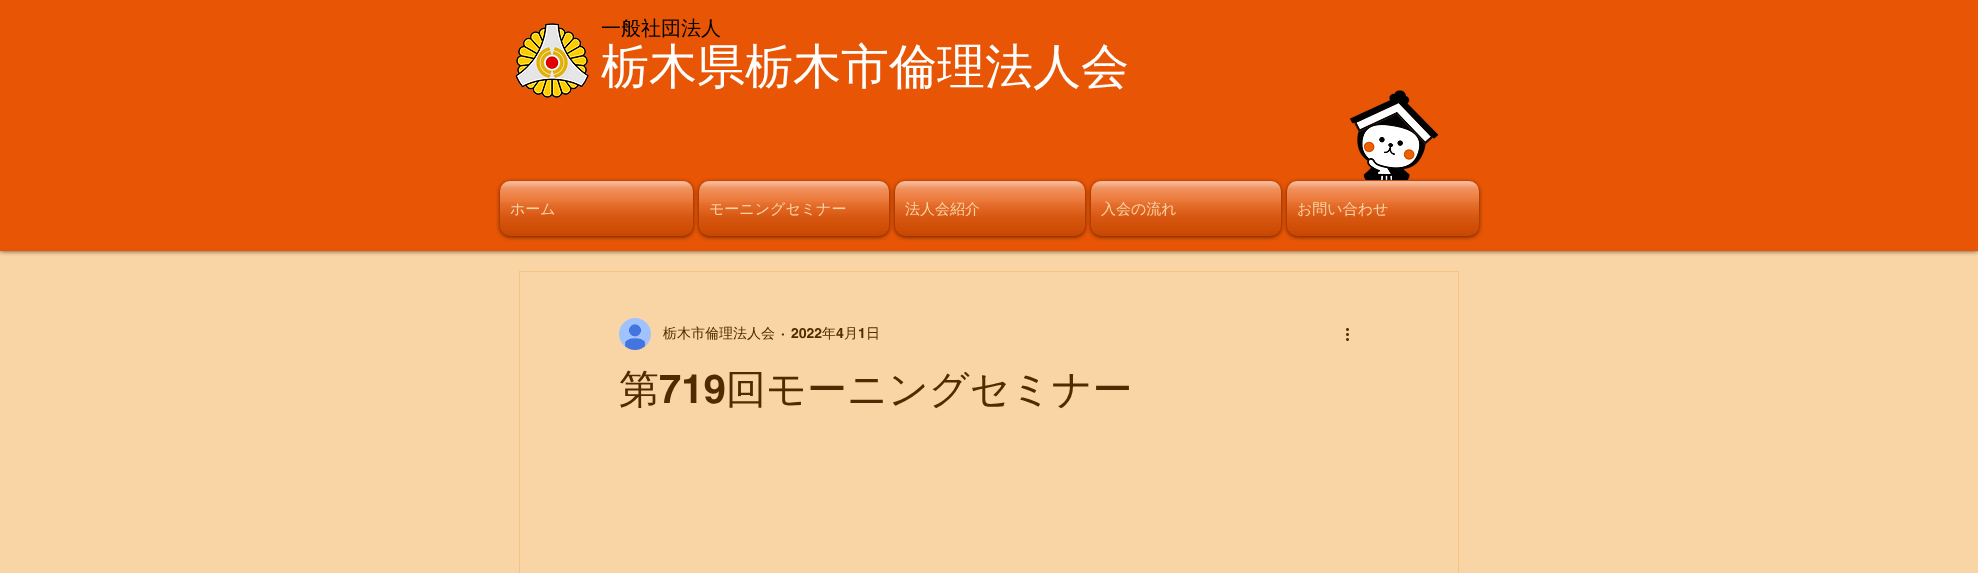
<!DOCTYPE html>
<meta charset="utf-8">
<style>body { margin: 0 } canvas { display: block }</style>
<canvas id="canvas" width="1978" height="573"></canvas>
<script type="module">
  const canvas = document.getElementById("canvas");
  const ctx = canvas.getContext("2d");
  ctx.miterLimit = 4;
  ctx.fontKerning = "normal";
  async function loadImage(src) {
    const img = new Image();
    img.src = src;
    await img.decode();
    return img;
  }

  ctx.fillStyle = "#f9d5a6";
  ctx.fillRect(0, 0, 1978, 573);
  ctx.fillStyle = "rgba(0, 0, 0, 0.7)";
  ctx.filter = "blur(2.5px)";
  ctx.beginPath();
  ctx.rect(0, 0, 1978, 251);
  ctx.fill();
  ctx.filter = "none";
  ctx.fillStyle = "#e85505";
  ctx.fillRect(0, 0, 1978, 251);
  ctx.drawImage(await loadImage("img1.png"), 515, 23, 74, 75);
  ctx.font = "500 20px WenQuanYi Zen Hei";
  ctx.fillStyle = "#000000";
  ctx.fillText("一般社団法人", 601, 35);
  ctx.font = "500 48px WenQuanYi Zen Hei";
  ctx.fillStyle = "#ffffff";
  ctx.fillText("栃木県栃木市倫理法人会", 601, 83);
  ctx.drawImage(await loadImage("img2.png"), 1350, 90, 89, 90);
  ctx.fillStyle = "rgba(0, 0, 0, 0.6)";
  ctx.filter = "blur(2px)";
  ctx.beginPath();
  ctx.roundRect(500, 182, 193, 55, 10);
  ctx.fill();
  ctx.filter = "none";
  ctx.fillStyle = "#e85505";
  ctx.beginPath();
  ctx.roundRect(500, 181, 193, 55, 10);
  ctx.fill();
  ctx.drawImage(await loadImage("img3.png"), 500, 181, 193, 46);
  ctx.drawImage(await loadImage("img4.png"), 500, 202, 193, 34);
  ctx.font = "500 15px WenQuanYi Zen Hei";
  ctx.fillStyle = "#f9d5a6";
  ctx.fillText("ホーム", 510, 214);
  ctx.fillStyle = "rgba(0, 0, 0, 0.6)";
  ctx.filter = "blur(2px)";
  ctx.beginPath();
  ctx.roundRect(699, 182, 190, 55, 10);
  ctx.fill();
  ctx.filter = "none";
  ctx.fillStyle = "#e85505";
  ctx.beginPath();
  ctx.roundRect(699, 181, 190, 55, 10);
  ctx.fill();
  ctx.drawImage(await loadImage("img5.png"), 699, 181, 190, 46);
  ctx.drawImage(await loadImage("img6.png"), 699, 202, 190, 34);
  ctx.fillStyle = "#f9d5a6";
  ctx.fillText("モーニングセミナー", 709, 214);
  ctx.fillStyle = "rgba(0, 0, 0, 0.6)";
  ctx.filter = "blur(2px)";
  ctx.beginPath();
  ctx.roundRect(895, 182, 190, 55, 10);
  ctx.fill();
  ctx.filter = "none";
  ctx.fillStyle = "#e85505";
  ctx.beginPath();
  ctx.roundRect(895, 181, 190, 55, 10);
  ctx.fill();
  ctx.drawImage(await loadImage("img5.png"), 895, 181, 190, 46);
  ctx.drawImage(await loadImage("img6.png"), 895, 202, 190, 34);
  ctx.fillStyle = "#f9d5a6";
  ctx.fillText("法人会紹介", 905, 214);
  ctx.fillStyle = "rgba(0, 0, 0, 0.6)";
  ctx.filter = "blur(2px)";
  ctx.beginPath();
  ctx.roundRect(1091, 182, 190, 55, 10);
  ctx.fill();
  ctx.filter = "none";
  ctx.fillStyle = "#e85505";
  ctx.beginPath();
  ctx.roundRect(1091, 181, 190, 55, 10);
  ctx.fill();
  ctx.drawImage(await loadImage("img5.png"), 1091, 181, 190, 46);
  ctx.drawImage(await loadImage("img6.png"), 1091, 202, 190, 34);
  ctx.fillStyle = "#f9d5a6";
  ctx.fillText("入会の流れ", 1101, 214);
  ctx.fillStyle = "rgba(0, 0, 0, 0.6)";
  ctx.filter = "blur(2px)";
  ctx.beginPath();
  ctx.roundRect(1287, 182, 192, 55, 10);
  ctx.fill();
  ctx.filter = "none";
  ctx.fillStyle = "#e85505";
  ctx.beginPath();
  ctx.roundRect(1287, 181, 192, 55, 10);
  ctx.fill();
  ctx.drawImage(await loadImage("img7.png"), 1287, 181, 192, 46);
  ctx.drawImage(await loadImage("img8.png"), 1287, 202, 192, 34);
  ctx.fillStyle = "#f9d5a6";
  ctx.fillText("お問い合わせ", 1297, 214);
  ctx.strokeStyle = "#f5c484";
  ctx.strokeRect(519.5, 271.5, 939, 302);
  ctx.drawImage(await loadImage("img9.png"), 619, 318, 32, 32);
  ctx.font = "500 14px WenQuanYi Zen Hei";
  ctx.fillStyle = "#4f2c00";
  ctx.fillText("栃木市倫理法人会", 663, 338);
  ctx.font = "bold 14px helvetica";
  ctx.fillText("·", 781, 338);
  ctx.fillText("2022", 791, 338);
  ctx.font = "500 14px WenQuanYi Zen Hei";
  ctx.fillText("年", 822, 338);
  ctx.font = "bold 14px helvetica";
  ctx.fillText("4", 836, 338);
  ctx.font = "500 14px WenQuanYi Zen Hei";
  ctx.fillText("月", 844, 338);
  ctx.font = "bold 14px helvetica";
  ctx.fillText("1", 858, 338);
  ctx.font = "500 14px WenQuanYi Zen Hei";
  ctx.fillText("日", 866, 338);
  ctx.drawImage(await loadImage("img10.png"), 1346, 328, 3, 13);
  ctx.font = "500 40px WenQuanYi Zen Hei";
  ctx.fillText("第", 619, 403);
  ctx.font = "bold 40px helvetica";
  ctx.fillText("719", 659, 403);
  ctx.font = "500 40px WenQuanYi Zen Hei";
  ctx.fillText("回モーニングセミナー", 726, 403);
</script>
